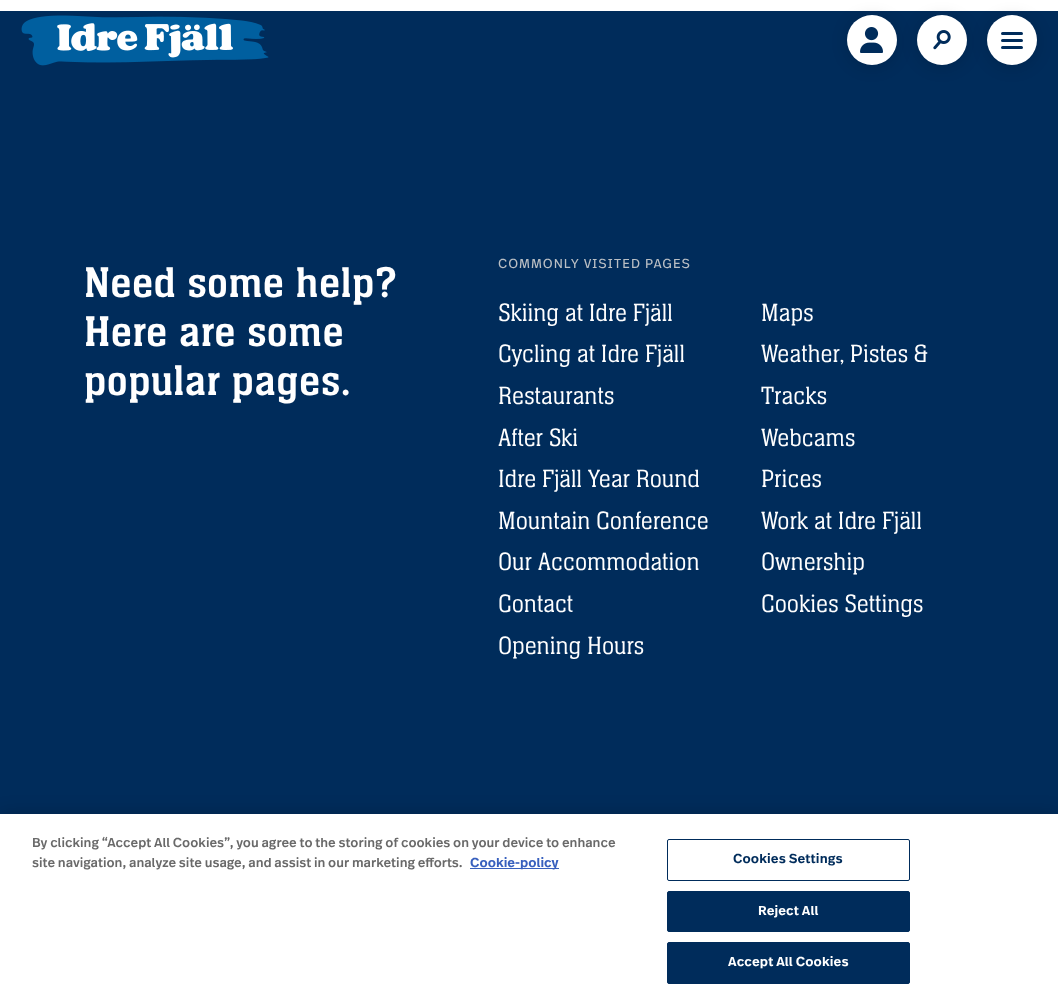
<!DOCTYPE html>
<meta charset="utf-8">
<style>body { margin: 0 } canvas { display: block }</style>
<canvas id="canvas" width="1058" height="1004"></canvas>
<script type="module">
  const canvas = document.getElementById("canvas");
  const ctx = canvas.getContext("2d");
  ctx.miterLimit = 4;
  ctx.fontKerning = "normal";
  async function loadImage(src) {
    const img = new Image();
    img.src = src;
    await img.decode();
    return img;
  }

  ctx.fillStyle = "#002c5b";
  ctx.fillRect(0, 0, 1058, 1004);
  ctx.drawImage(await loadImage("img1.png"), 21, 15, 248, 51);
  ctx.fillStyle = "#ffffff";
  ctx.fillRect(0, 0, 1058, 11);
  ctx.fillStyle = "rgba(0, 0, 0, 0.15)";
  ctx.filter = "blur(8px)";
  ctx.beginPath();
  ctx.roundRect(847, 17, 50, 50, 25);
  ctx.fill();
  ctx.filter = "none";
  ctx.fillStyle = "#ffffff";
  ctx.beginPath();
  ctx.arc(872, 40, 25, 0, Math.PI * 2);
  ctx.fill();
  ctx.drawImage(await loadImage("img2.png"), 860, 27, 23, 26);
  ctx.fillStyle = "rgba(0, 0, 0, 0.15)";
  ctx.filter = "blur(8px)";
  ctx.beginPath();
  ctx.roundRect(987, 17, 50, 50, 25);
  ctx.fill();
  ctx.filter = "none";
  ctx.fillStyle = "#ffffff";
  ctx.beginPath();
  ctx.arc(1012, 40, 25, 0, Math.PI * 2);
  ctx.fill();
  ctx.fillStyle = "rgba(0, 0, 0, 0.15)";
  ctx.filter = "blur(8px)";
  ctx.beginPath();
  ctx.roundRect(917, 17, 50, 50, 25);
  ctx.fill();
  ctx.filter = "none";
  ctx.fillStyle = "#ffffff";
  ctx.beginPath();
  ctx.arc(942, 40, 25, 0, Math.PI * 2);
  ctx.fill();
  ctx.drawImage(await loadImage("img3.png"), 933, 30, 18, 20);
  ctx.fillStyle = "#002c5b";
  ctx.beginPath();
  ctx.roundRect(1001, 32, 22, 3, 1.5);
  ctx.fill();
  ctx.beginPath();
  ctx.roundRect(1001, 39, 22, 3, 1.5);
  ctx.fill();
  ctx.beginPath();
  ctx.roundRect(1001, 46, 22, 3, 1.5);
  ctx.fill();
  ctx.letterSpacing = "0.5px";
  ctx.font = "44.5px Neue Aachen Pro";
  ctx.fillStyle = "#ffffff";
  ctx.fillText("Need some help?", 84, 297);
  ctx.fillText("Here are some", 84, 346);
  ctx.fillText("popular pages.", 84, 395);
  ctx.letterSpacing = "1px";
  ctx.font = "13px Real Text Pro";
  ctx.fillStyle = "#babfc4";
  ctx.fillText("COMMONLY VISITED PAGES", 498, 268);
  ctx.letterSpacing = "0px";
  ctx.font = "300 26px Neue Aachen Pro";
  ctx.fillStyle = "#ffffff";
  ctx.fillText("Skiing at Idre Fjäll", 498, 321);
  ctx.fillText("Maps", 761, 321);
  ctx.fillText("Cycling at Idre Fjäll", 498, 362);
  ctx.fillText("Weather, Pistes &", 761, 362);
  ctx.fillText("Tracks", 761, 404);
  ctx.fillText("Restaurants", 498, 404);
  ctx.fillText("After Ski", 498, 446);
  ctx.fillText("Webcams", 761, 446);
  ctx.fillText("Idre Fjäll Year Round", 498, 487);
  ctx.fillText("Prices", 761, 487);
  ctx.fillText("Mountain Conference", 498, 529);
  ctx.fillText("Work at Idre Fjäll", 761, 529);
  ctx.fillText("Our Accommodation", 498, 570);
  ctx.fillText("Ownership", 761, 570);
  ctx.fillText("Contact", 498, 612);
  ctx.fillText("Cookies Settings", 761, 612);
  ctx.fillText("Opening Hours", 498, 654);
  ctx.fillStyle = "rgba(0, 0, 0, 0.2)";
  ctx.filter = "blur(9px)";
  ctx.beginPath();
  ctx.rect(0, 814, 1058, 190);
  ctx.fill();
  ctx.filter = "none";
  ctx.fillStyle = "#ffffff";
  ctx.fillRect(0, 814, 1058, 190);
  ctx.font = "500 13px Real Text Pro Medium";
  ctx.fillStyle = "#696969";
  ctx.fillText("By clicking “Accept All Cookies”, you agree to the storing of cookies on your device to enhance", 32, 847);
  ctx.fillText("site navigation, analyze site usage, and assist in our marketing efforts.", 32, 867);
  ctx.fillStyle = "#3860be";
  ctx.fillRect(470, 868, 89, 1);
  ctx.font = "600 13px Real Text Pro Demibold";
  ctx.fillText("Cookie-policy", 470, 867);
  ctx.beginPath();
  ctx.roundRect(667.5, 839.5, 242, 41, 1.5);
  ctx.strokeStyle = "#002c5b";
  ctx.stroke();
  ctx.letterSpacing = "0.1px";
  ctx.fillStyle = "#002c5b";
  ctx.fillText("Cookies Settings", 733, 863);
  ctx.beginPath();
  ctx.roundRect(667.5, 891.5, 242, 40, 1.5);
  ctx.fill();
  ctx.stroke();
  ctx.fillStyle = "#ffffff";
  ctx.fillText("Reject All", 758, 915);
  ctx.fillStyle = "#002c5b";
  ctx.beginPath();
  ctx.roundRect(667.5, 942.5, 242, 41, 1.5);
  ctx.fill();
  ctx.stroke();
  ctx.fillStyle = "#ffffff";
  ctx.fillText("Accept All Cookies", 728, 966);
</script>
